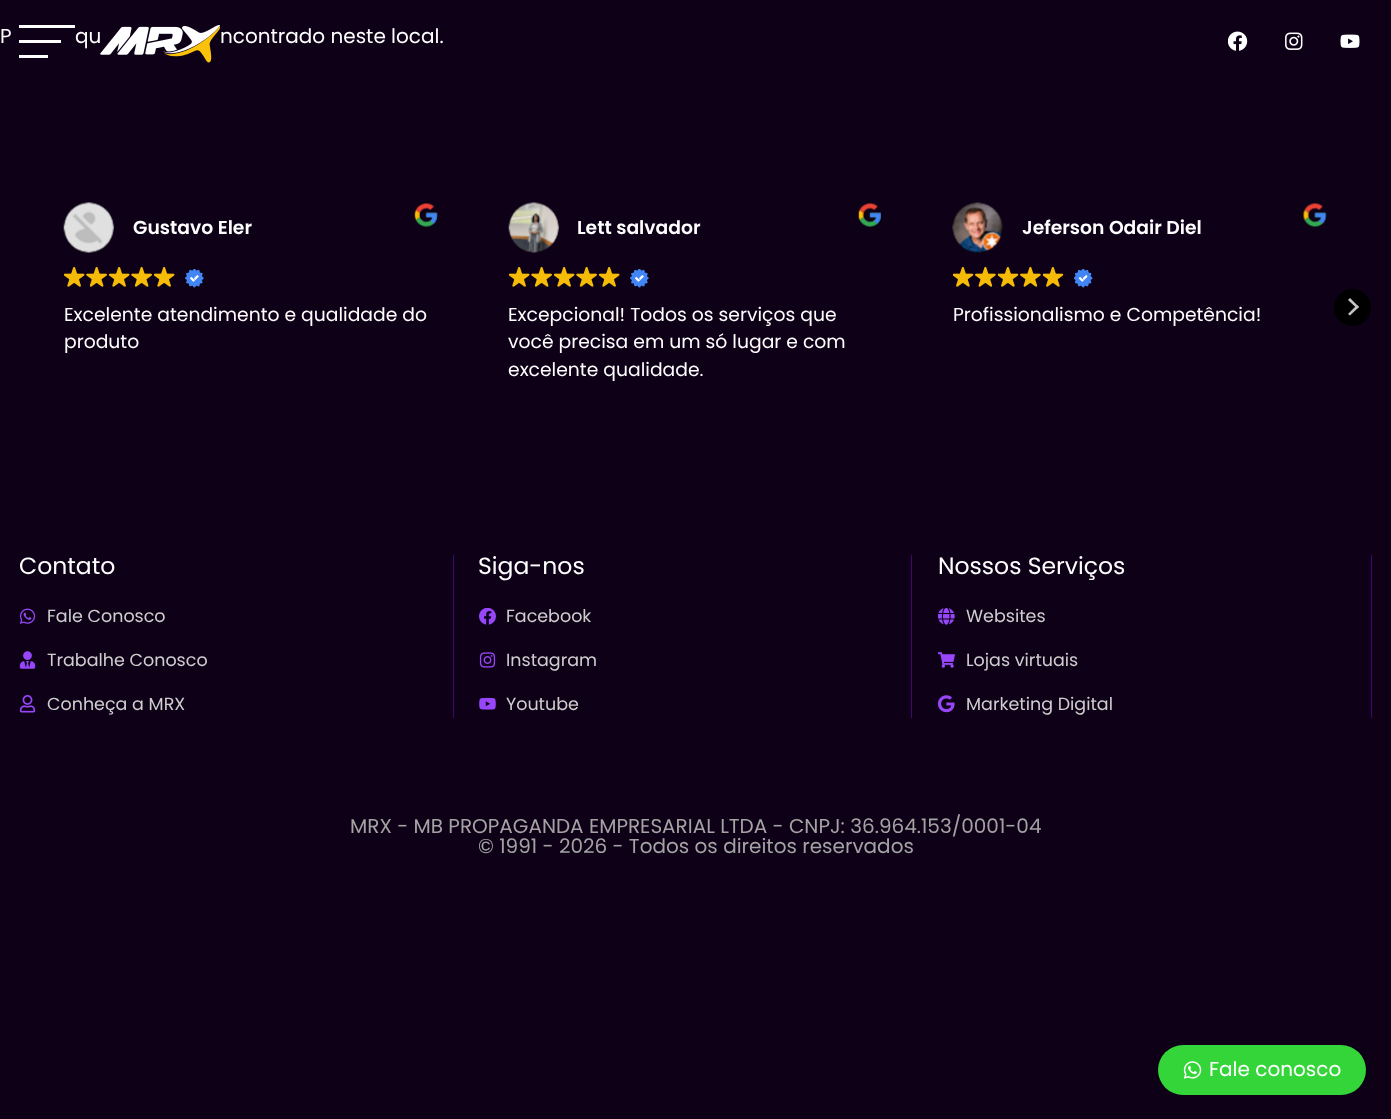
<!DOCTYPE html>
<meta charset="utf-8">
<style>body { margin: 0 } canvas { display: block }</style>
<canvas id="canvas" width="1391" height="1119"></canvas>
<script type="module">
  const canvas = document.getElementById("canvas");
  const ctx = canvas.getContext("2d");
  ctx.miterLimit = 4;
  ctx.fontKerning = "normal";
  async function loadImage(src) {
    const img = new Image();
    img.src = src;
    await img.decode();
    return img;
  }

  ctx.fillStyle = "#0d0017";
  ctx.fillRect(0, 0, 1391, 1119);
  ctx.fillStyle = "#ffffff";
  ctx.fillRect(19, 25, 56, 3);
  ctx.fillRect(19, 40, 42, 3);
  ctx.fillRect(19, 55, 29, 3);
  ctx.drawImage(await loadImage("img1.png"), 100, 25, 120, 38);
  ctx.drawImage(await loadImage("img2.png"), 1228, 31, 20, 20);
  ctx.drawImage(await loadImage("img3.png"), 1285, 32, 18, 18);
  ctx.drawImage(await loadImage("img4.png"), 1340, 34, 20, 14);
  ctx.font = "20px Poppins";
  ctx.fillText("P", 0, 43);
  ctx.fillText("qu", 75, 43);
  ctx.fillText("ncontrado neste local.", 220, 43);
  ctx.drawImage(await loadImage("img5.png"), 63, 202, 51, 51);
  ctx.font = "600 18.75px Poppins";
  ctx.fillText("Gustavo Eler", 133, 234);
  ctx.drawImage(await loadImage("img6.png"), 414, 203, 24, 24);
  ctx.drawImage(await loadImage("img7.png"), 64, 267, 21, 20);
  ctx.drawImage(await loadImage("img8.png"), 86, 266, 21, 21);
  ctx.drawImage(await loadImage("img7.png"), 109, 267, 21, 20);
  ctx.drawImage(await loadImage("img8.png"), 131, 266, 21, 21);
  ctx.drawImage(await loadImage("img7.png"), 154, 267, 21, 20);
  ctx.drawImage(await loadImage("img9.png"), 185, 269, 19, 19);
  ctx.font = "18.75px Poppins";
  ctx.fillText("Excelente atendimento e qualidade do", 64, 321);
  ctx.fillText("produto", 64, 348);
  ctx.drawImage(await loadImage("img10.png"), 508, 202, 51, 51);
  ctx.font = "600 18.75px Poppins";
  ctx.fillText("Lett salvador", 577, 234);
  ctx.drawImage(await loadImage("img11.png"), 858, 203, 24, 24);
  ctx.drawImage(await loadImage("img7.png"), 509, 267, 21, 20);
  ctx.drawImage(await loadImage("img8.png"), 531, 266, 21, 21);
  ctx.drawImage(await loadImage("img7.png"), 554, 267, 21, 20);
  ctx.drawImage(await loadImage("img8.png"), 576, 266, 21, 21);
  ctx.drawImage(await loadImage("img7.png"), 599, 267, 21, 20);
  ctx.drawImage(await loadImage("img9.png"), 630, 269, 19, 19);
  ctx.font = "18.75px Poppins";
  ctx.fillText("Excepcional! Todos os serviços que", 508, 321);
  ctx.fillText("você precisa em um só lugar e com", 508, 348);
  ctx.fillText("excelente qualidade.", 508, 376);
  ctx.drawImage(await loadImage("img12.png"), 952, 202, 51, 51);
  ctx.font = "600 18.75px Poppins";
  ctx.fillText("Jeferson Odair Diel", 1022, 234);
  ctx.drawImage(await loadImage("img13.png"), 1303, 203, 24, 24);
  ctx.drawImage(await loadImage("img14.png"), 953, 267, 21, 20);
  ctx.drawImage(await loadImage("img15.png"), 975, 266, 21, 21);
  ctx.drawImage(await loadImage("img14.png"), 998, 267, 21, 20);
  ctx.drawImage(await loadImage("img15.png"), 1020, 266, 21, 21);
  ctx.drawImage(await loadImage("img14.png"), 1043, 267, 21, 20);
  ctx.drawImage(await loadImage("img16.png"), 1074, 269, 19, 19);
  ctx.font = "18.75px Poppins";
  ctx.fillText("Profissionalismo e Competência!", 953, 321);
  ctx.fillStyle = "#000000";
  ctx.beginPath();
  ctx.arc(1352.5, 307.5, 18.5, 0, Math.PI * 2);
  ctx.fill();
  ctx.fillStyle = "#c5c5c5";
  ctx.beginPath();
  ctx.moveTo(1357, 308.5);
  ctx.lineTo(1348, 300);
  ctx.lineTo(1350, 298);
  ctx.lineTo(1359, 307);
  ctx.closePath();
  ctx.fill();
  ctx.beginPath();
  ctx.moveTo(1350, 315.5);
  ctx.lineTo(1348, 314);
  ctx.lineTo(1357, 305);
  ctx.lineTo(1359, 307);
  ctx.closePath();
  ctx.fill();
  ctx.fillStyle = "#41056d";
  ctx.fillRect(453, 555, 1, 163);
  ctx.font = "23.5px Poppins";
  ctx.fillStyle = "#ffffff";
  ctx.fillText("Contato", 19, 574);
  ctx.drawImage(await loadImage("img17.png"), 19, 608, 17, 16);
  ctx.font = "17.5px Poppins";
  ctx.fillStyle = "#cecece";
  ctx.fillText("Fale Conosco", 47, 622);
  ctx.drawImage(await loadImage("img18.png"), 19, 651, 17, 18);
  ctx.fillText("Trabalhe Conosco", 47, 666);
  ctx.drawImage(await loadImage("img19.png"), 19, 695, 17, 18);
  ctx.fillText("Conheça a MRX", 47, 710);
  ctx.fillStyle = "#41056d";
  ctx.fillRect(911, 555, 1, 163);
  ctx.font = "23.5px Poppins";
  ctx.fillStyle = "#ffffff";
  ctx.fillText("Siga-nos", 478, 574);
  ctx.drawImage(await loadImage("img20.png"), 479, 608, 17, 17);
  ctx.font = "17.5px Poppins";
  ctx.fillStyle = "#cecece";
  ctx.fillText("Facebook", 506, 622);
  ctx.drawImage(await loadImage("img21.png"), 479, 652, 17, 16);
  ctx.fillText("Instagram", 506, 666);
  ctx.drawImage(await loadImage("img22.png"), 479, 697, 17, 13);
  ctx.fillText("Youtube", 506, 710);
  ctx.fillStyle = "#41056d";
  ctx.fillRect(1371, 555, 1, 163);
  ctx.font = "23.5px Poppins";
  ctx.fillStyle = "#ffffff";
  ctx.fillText("Nossos Serviços", 938, 574);
  ctx.drawImage(await loadImage("img23.png"), 938, 608, 17, 17);
  ctx.font = "17.5px Poppins";
  ctx.fillStyle = "#cecece";
  ctx.fillText("Websites", 966, 622);
  ctx.drawImage(await loadImage("img24.png"), 938, 652, 17, 16);
  ctx.fillText("Lojas virtuais", 966, 666);
  ctx.drawImage(await loadImage("img25.png"), 938, 695, 17, 18);
  ctx.fillText("Marketing Digital", 966, 710);
  ctx.font = "20px Poppins";
  ctx.fillStyle = "#a3a3a3";
  ctx.fillText("MRX - MB PROPAGANDA EMPRESARIAL LTDA - CNPJ: 36.964.153/0001-04", 350, 833);
  ctx.fillText("© 1991 - 2026 - Todos os direitos reservados", 478, 853);
  ctx.fillStyle = "#34d538";
  ctx.beginPath();
  ctx.roundRect(1158, 1045, 208, 50, 25);
  ctx.fill();
  ctx.drawImage(await loadImage("img26.png"), 1183, 1061, 19, 18);
  ctx.fillStyle = "#ffffff";
  ctx.fillText("Fale conosco", 1209, 1076);
</script>
